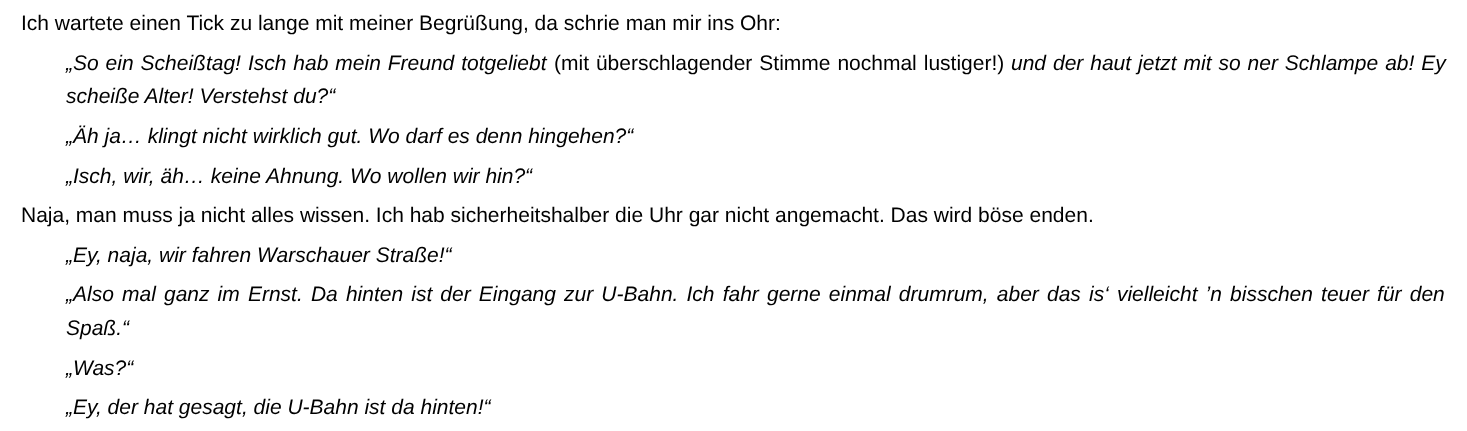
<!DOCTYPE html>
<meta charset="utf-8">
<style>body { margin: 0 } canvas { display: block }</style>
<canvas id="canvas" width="1467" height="431"></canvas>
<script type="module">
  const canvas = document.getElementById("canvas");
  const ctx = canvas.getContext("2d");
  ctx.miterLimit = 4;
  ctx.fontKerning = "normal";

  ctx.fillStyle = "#ffffff";
  ctx.fillRect(0, 0, 1467, 431);
  ctx.font = "21px Liberation Sans";
  ctx.fillStyle = "#000000";
  ctx.fillText("Ich wartete einen Tick zu lange mit meiner Begrüßung, da schrie man mir ins Ohr:", 21, 30);
  ctx.wordSpacing = "1.1px";
  ctx.font = "italic 21px Liberation Sans";
  ctx.fillText("„So ein Scheißtag! Isch hab mein Freund totgeliebt", 66, 70);
  ctx.font = "21px Liberation Sans";
  ctx.fillText("(mit überschlagender Stimme nochmal lustiger!)", 554, 70);
  ctx.font = "italic 21px Liberation Sans";
  ctx.fillText("und der haut jetzt mit so ner Schlampe ab! Ey", 1011, 70);
  ctx.wordSpacing = "0px";
  ctx.fillText("scheiße Alter! Verstehst du?“", 66, 103);
  ctx.fillText("„Äh ja… klingt nicht wirklich gut. Wo darf es denn hingehen?“", 66, 143);
  ctx.fillText("„Isch, wir, äh… keine Ahnung. Wo wollen wir hin?“", 66, 183);
  ctx.font = "21px Liberation Sans";
  ctx.fillText("Naja, man muss ja nicht alles wissen. Ich hab sicherheitshalber die Uhr gar nicht angemacht. Das wird böse enden.", 21, 222);
  ctx.font = "italic 21px Liberation Sans";
  ctx.fillText("„Ey, naja, wir fahren Warschauer Straße!“", 66, 262);
  ctx.wordSpacing = "2.3px";
  ctx.fillText("„Also mal ganz im Ernst. Da hinten ist der Eingang zur U-Bahn. Ich fahr gerne einmal drumrum, aber das is‘ vielleicht ’n bisschen teuer für den", 66, 301);
  ctx.wordSpacing = "0px";
  ctx.fillText("Spaß.“", 66, 335);
  ctx.fillText("„Was?“", 66, 375);
  ctx.fillText("„Ey, der hat gesagt, die U-Bahn ist da hinten!“", 66, 414);
</script>
